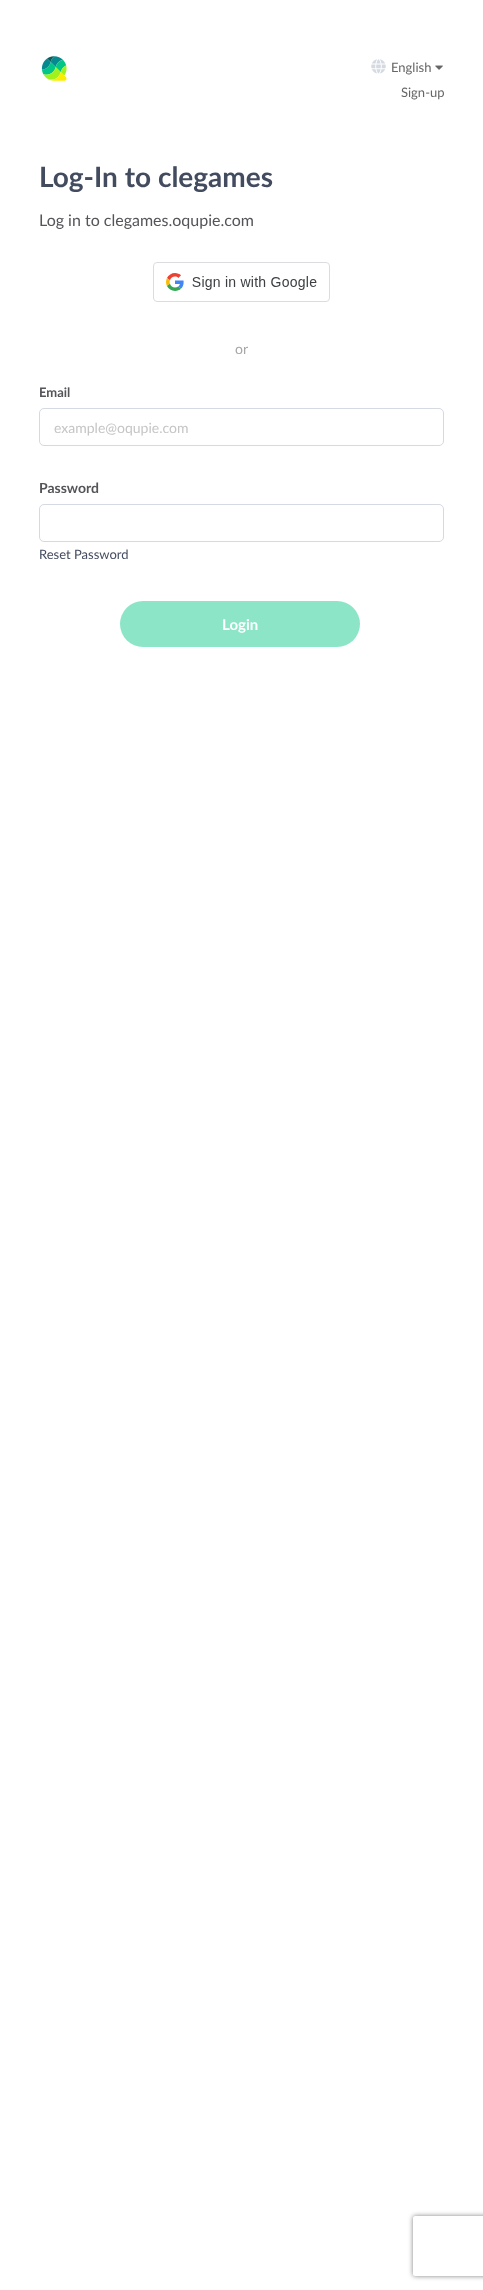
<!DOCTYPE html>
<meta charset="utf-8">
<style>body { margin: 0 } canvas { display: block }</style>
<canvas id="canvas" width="483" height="2290"></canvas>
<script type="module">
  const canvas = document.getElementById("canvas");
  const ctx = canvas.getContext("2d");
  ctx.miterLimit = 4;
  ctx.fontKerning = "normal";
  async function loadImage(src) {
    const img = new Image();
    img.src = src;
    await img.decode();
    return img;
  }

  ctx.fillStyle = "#ffffff";
  ctx.fillRect(0, 0, 483, 2290);
  ctx.drawImage(await loadImage("img1.png"), 41, 56, 26, 25);
  ctx.drawImage(await loadImage("img2.png"), 371, 59, 15, 15);
  ctx.font = "13px Lato";
  ctx.fillStyle = "#666666";
  ctx.fillText("English", 391, 72);
  ctx.drawImage(await loadImage("img3.png"), 435, 65, 8, 5);
  ctx.fillText("Sign-up", 401, 97);
  ctx.font = "bold 28px Lato";
  ctx.fillStyle = "#434c5f";
  ctx.fillText("Log-In to clegames", 39, 187);
  ctx.font = "16px Lato";
  ctx.fillStyle = "#555459";
  ctx.fillText("Log in to clegames.oqupie.com", 39, 226);
  ctx.drawImage(await loadImage("img4.png"), 153, 262, 177, 40);
  ctx.font = "14px Lato";
  ctx.fillStyle = "#a7a7aa";
  ctx.fillText("or", 235, 354);
  ctx.font = "bold 13px Lato";
  ctx.fillStyle = "#555459";
  ctx.fillText("Email", 39, 397);
  ctx.beginPath();
  ctx.roundRect(39.5, 408.5, 404, 37, 4.5);
  ctx.strokeStyle = "#d4d9e2";
  ctx.stroke();
  ctx.font = "14px Lato";
  ctx.fillStyle = "#c5c5c5";
  ctx.fillText("example@oqupie.com", 54, 433);
  ctx.font = "bold 14px Lato";
  ctx.fillStyle = "#555459";
  ctx.fillText("Password", 39, 493);
  ctx.beginPath();
  ctx.roundRect(39.5, 504.5, 404, 37, 4.5);
  ctx.stroke();
  ctx.font = "13px Lato";
  ctx.fillStyle = "#434c5f";
  ctx.fillText("Reset Password", 39, 559);
  ctx.fillStyle = "#8de5c8";
  ctx.beginPath();
  ctx.roundRect(120, 601, 240, 46, 23);
  ctx.fill();
  ctx.font = "bold 15px Lato";
  ctx.fillStyle = "#ffffff";
  ctx.fillText("Login", 222, 630);
  ctx.save();
  ctx.beginPath();
  ctx.moveTo(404, 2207);
  ctx.lineTo(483, 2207);
  ctx.lineTo(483, 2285);
  ctx.lineTo(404, 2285);
  ctx.closePath();
  ctx.moveTo(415, 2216);
  ctx.lineTo(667, 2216);
  ctx.bezierCurveTo(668, 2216, 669, 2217, 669, 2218);
  ctx.lineTo(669, 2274);
  ctx.bezierCurveTo(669, 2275, 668, 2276, 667, 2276);
  ctx.lineTo(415, 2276);
  ctx.bezierCurveTo(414, 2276, 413, 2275, 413, 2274);
  ctx.lineTo(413, 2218);
  ctx.bezierCurveTo(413, 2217, 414, 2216, 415, 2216);
  ctx.closePath();
  ctx.clip("evenodd");
  ctx.fillStyle = "#808080";
  ctx.filter = "blur(2.5px)";
  ctx.beginPath();
  ctx.roundRect(413, 2216, 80, 60, 2);
  ctx.fill();
  ctx.filter = "none";
  ctx.restore();
</script>
